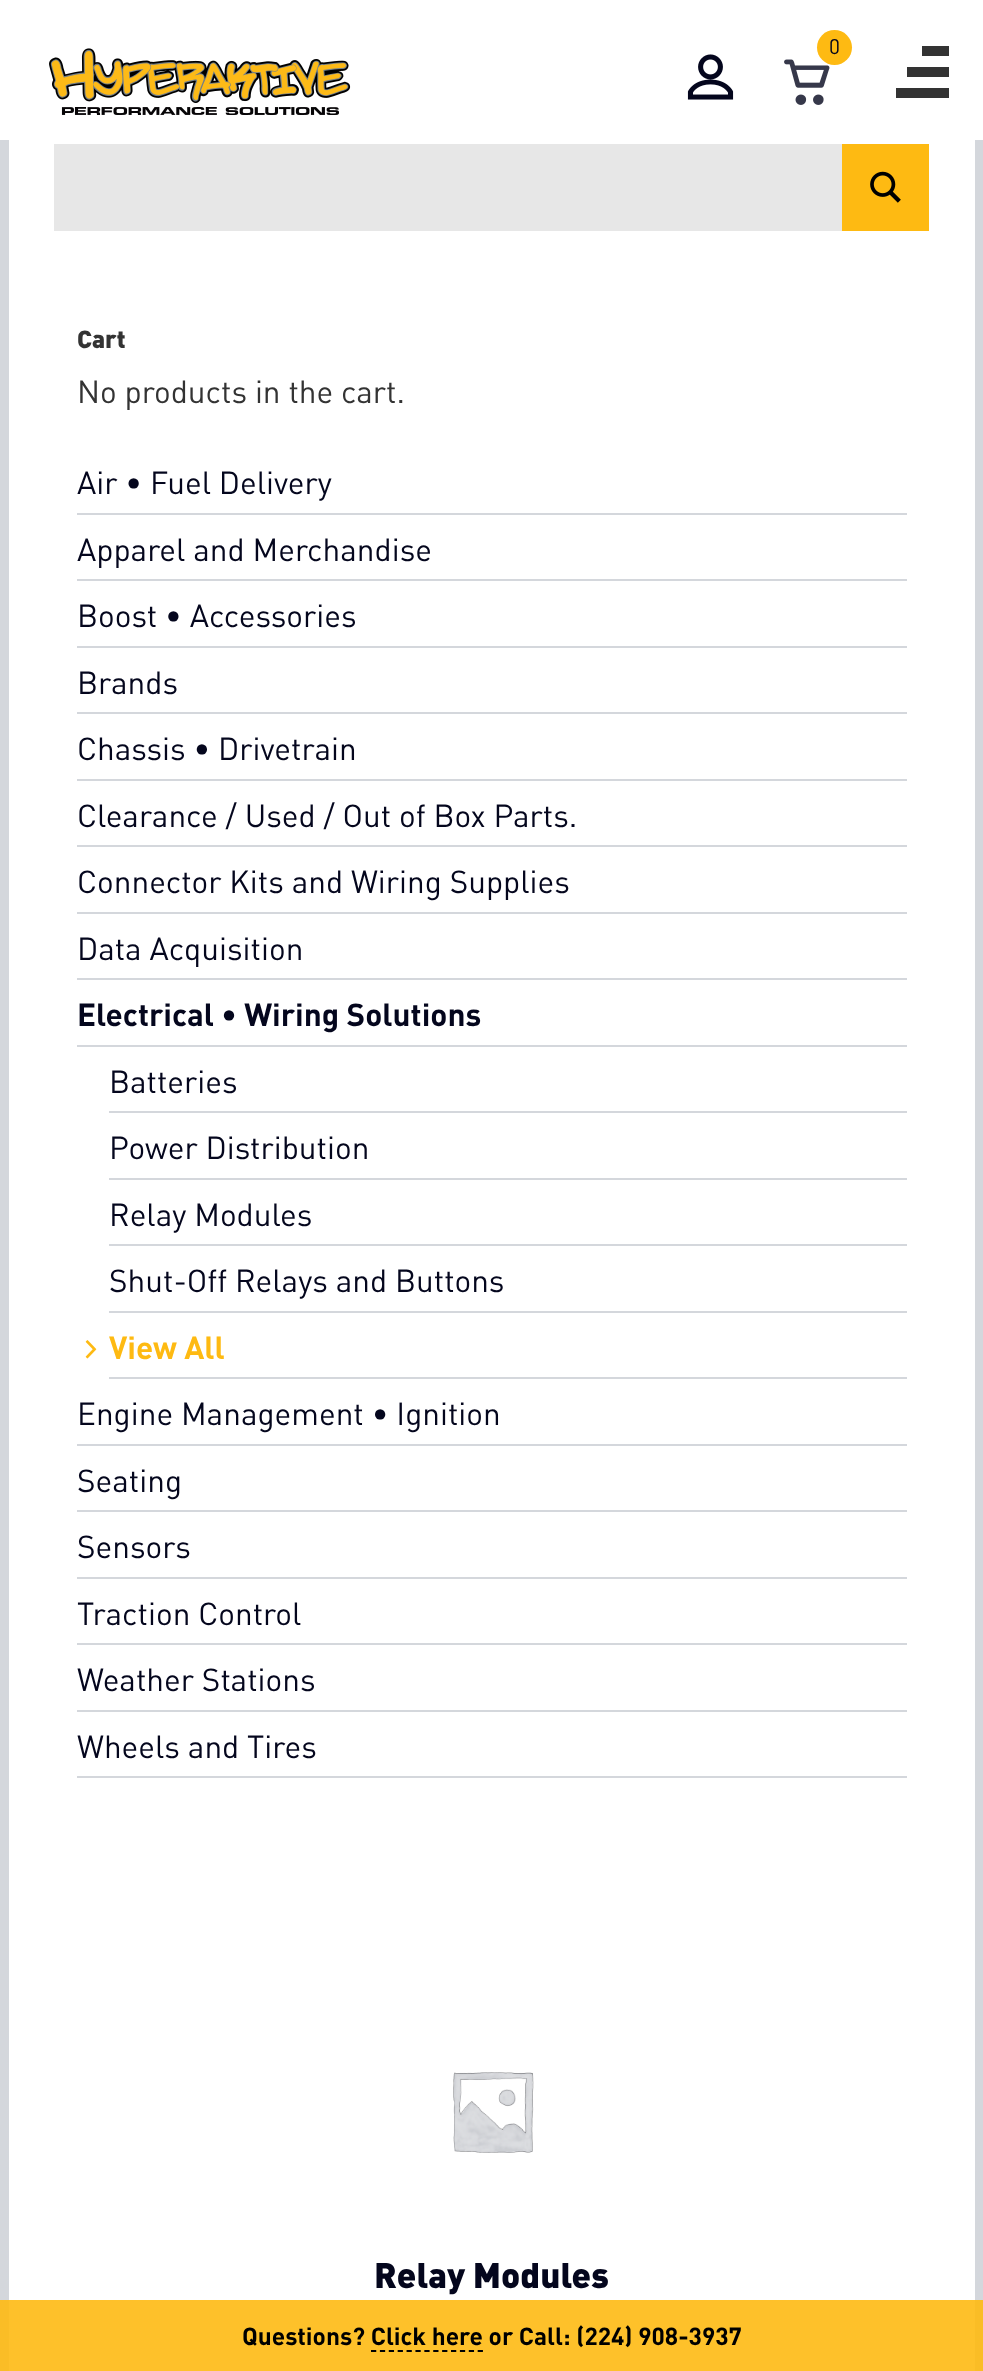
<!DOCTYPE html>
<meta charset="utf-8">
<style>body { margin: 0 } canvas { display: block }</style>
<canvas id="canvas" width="983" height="2371"></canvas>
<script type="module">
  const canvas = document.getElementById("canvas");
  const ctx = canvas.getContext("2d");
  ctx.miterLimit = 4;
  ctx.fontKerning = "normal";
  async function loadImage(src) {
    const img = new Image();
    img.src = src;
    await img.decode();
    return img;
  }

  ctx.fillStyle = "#d4d7dc";
  ctx.fillRect(0, 0, 983, 2371);
  ctx.fillStyle = "#fabd26";
  ctx.fillRect(0, 2300, 983, 71);
  ctx.fillStyle = "#ffffff";
  ctx.fillRect(0, 0, 983, 140);
  ctx.drawImage(await loadImage("img1.png"), 784, 59, 46, 46);
  ctx.fillStyle = "#feba12";
  ctx.beginPath();
  ctx.arc(834.5, 47.5, 17.5, 0, Math.PI * 2);
  ctx.fill();
  ctx.font = "21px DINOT";
  ctx.fillStyle = "#04061d";
  ctx.fillText("0", 829, 54);
  ctx.drawImage(await loadImage("img2.png"), 687, 54, 47, 46);
  ctx.drawImage(await loadImage("img3.png"), 49, 48, 302, 67);
  ctx.fillStyle = "#333333";
  ctx.fillRect(922, 46, 27, 10);
  ctx.fillRect(907, 67, 42, 10);
  ctx.fillRect(896, 88, 53, 10);
  ctx.fillStyle = "#ffffff";
  ctx.fillRect(9, 140, 966, 2160);
  ctx.fillStyle = "#fec12a";
  ctx.fillRect(9, 2300, 966, 71);
  ctx.fillStyle = "#e7e7e7";
  ctx.fillRect(54, 144, 788, 87);
  ctx.fillStyle = "#feba12";
  ctx.fillRect(842, 144, 87, 87);
  ctx.drawImage(await loadImage("img4.png"), 870, 171, 31, 32);
  ctx.font = "900 24.5px DINOT";
  ctx.fillStyle = "#333333";
  ctx.fillText("Cart", 77, 348);
  ctx.font = "31.5px DINOT";
  ctx.fillText("No products in the cart.", 77, 403);
  ctx.fillStyle = "#d4d7dc";
  ctx.fillRect(77, 513, 830, 2);
  ctx.fillStyle = "#04061d";
  ctx.fillText("Air • Fuel Delivery", 77, 494);
  ctx.fillStyle = "#d4d7dc";
  ctx.fillRect(77, 579, 830, 2);
  ctx.fillStyle = "#04061d";
  ctx.fillText("Apparel and Merchandise", 77, 561);
  ctx.fillStyle = "#d4d7dc";
  ctx.fillRect(77, 646, 830, 2);
  ctx.fillStyle = "#04061d";
  ctx.fillText("Boost • Accessories", 77, 627);
  ctx.fillStyle = "#d4d7dc";
  ctx.fillRect(77, 712, 830, 2);
  ctx.fillStyle = "#04061d";
  ctx.fillText("Brands", 77, 694);
  ctx.fillStyle = "#d4d7dc";
  ctx.fillRect(77, 779, 830, 2);
  ctx.fillStyle = "#04061d";
  ctx.fillText("Chassis • Drivetrain", 77, 760);
  ctx.fillStyle = "#d4d7dc";
  ctx.fillRect(77, 845, 830, 2);
  ctx.fillStyle = "#04061d";
  ctx.fillText("Clearance / Used / Out of Box Parts.", 77, 827);
  ctx.fillStyle = "#d4d7dc";
  ctx.fillRect(77, 912, 830, 2);
  ctx.fillStyle = "#04061d";
  ctx.fillText("Connector Kits and Wiring Supplies", 77, 893);
  ctx.fillStyle = "#d4d7dc";
  ctx.fillRect(77, 978, 830, 2);
  ctx.fillStyle = "#04061d";
  ctx.fillText("Data Acquisition", 77, 960);
  ctx.fillStyle = "#d4d7dc";
  ctx.fillRect(77, 1045, 830, 2);
  ctx.font = "bold 31.5px DINOT";
  ctx.fillStyle = "#04061d";
  ctx.fillText("Electrical • Wiring Solutions", 77, 1026);
  ctx.fillStyle = "#d4d7dc";
  ctx.fillRect(109, 1111, 798, 2);
  ctx.font = "31.5px DINOT";
  ctx.fillStyle = "#04061d";
  ctx.fillText("Batteries", 109, 1093);
  ctx.fillStyle = "#d4d7dc";
  ctx.fillRect(109, 1178, 798, 2);
  ctx.fillStyle = "#04061d";
  ctx.fillText("Power Distribution", 109, 1159);
  ctx.fillStyle = "#d4d7dc";
  ctx.fillRect(109, 1244, 798, 2);
  ctx.fillStyle = "#04061d";
  ctx.fillText("Relay Modules", 109, 1226);
  ctx.fillStyle = "#d4d7dc";
  ctx.fillRect(109, 1311, 798, 2);
  ctx.fillStyle = "#04061d";
  ctx.fillText("Shut-Off Relays and Buttons", 109, 1292);
  ctx.fillStyle = "#d4d7dc";
  ctx.fillRect(109, 1377, 798, 2);
  ctx.drawImage(await loadImage("img5.png"), 85, 1340, 12, 19);
  ctx.font = "bold 31.5px DINOT";
  ctx.fillStyle = "#feba12";
  ctx.fillText("View All", 109, 1359);
  ctx.fillStyle = "#d4d7dc";
  ctx.fillRect(77, 1444, 830, 2);
  ctx.font = "31.5px DINOT";
  ctx.fillStyle = "#04061d";
  ctx.fillText("Engine Management • Ignition", 77, 1425);
  ctx.fillStyle = "#d4d7dc";
  ctx.fillRect(77, 1510, 830, 2);
  ctx.fillStyle = "#04061d";
  ctx.fillText("Seating", 77, 1492);
  ctx.fillStyle = "#d4d7dc";
  ctx.fillRect(77, 1577, 830, 2);
  ctx.fillStyle = "#04061d";
  ctx.fillText("Sensors", 77, 1558);
  ctx.fillStyle = "#d4d7dc";
  ctx.fillRect(77, 1643, 830, 2);
  ctx.fillStyle = "#04061d";
  ctx.fillText("Traction Control", 77, 1625);
  ctx.fillStyle = "#d4d7dc";
  ctx.fillRect(77, 1710, 830, 2);
  ctx.fillStyle = "#04061d";
  ctx.fillText("Weather Stations", 77, 1691);
  ctx.fillStyle = "#d4d7dc";
  ctx.fillRect(77, 1776, 830, 2);
  ctx.fillStyle = "#04061d";
  ctx.fillText("Wheels and Tires", 77, 1758);
  ctx.drawImage(await loadImage("img6.png"), 453, 2072, 81, 81);
  ctx.font = "900 35px DINOT";
  ctx.fillText("Relay Modules", 374, 2288);
  ctx.font = "bold 24.5px DINOT";
  ctx.fillStyle = "#000000";
  ctx.fillText("Questions? Click here or Call: (224) 908-3937", 242, 2345);
  ctx.beginPath();
  ctx.moveTo(371, 2351);
  ctx.lineTo(483, 2351);
  ctx.strokeStyle = "#000000";
  ctx.lineWidth = 1.8;
  ctx.setLineDash([5.25, 3.64]);
  ctx.stroke();
</script>
